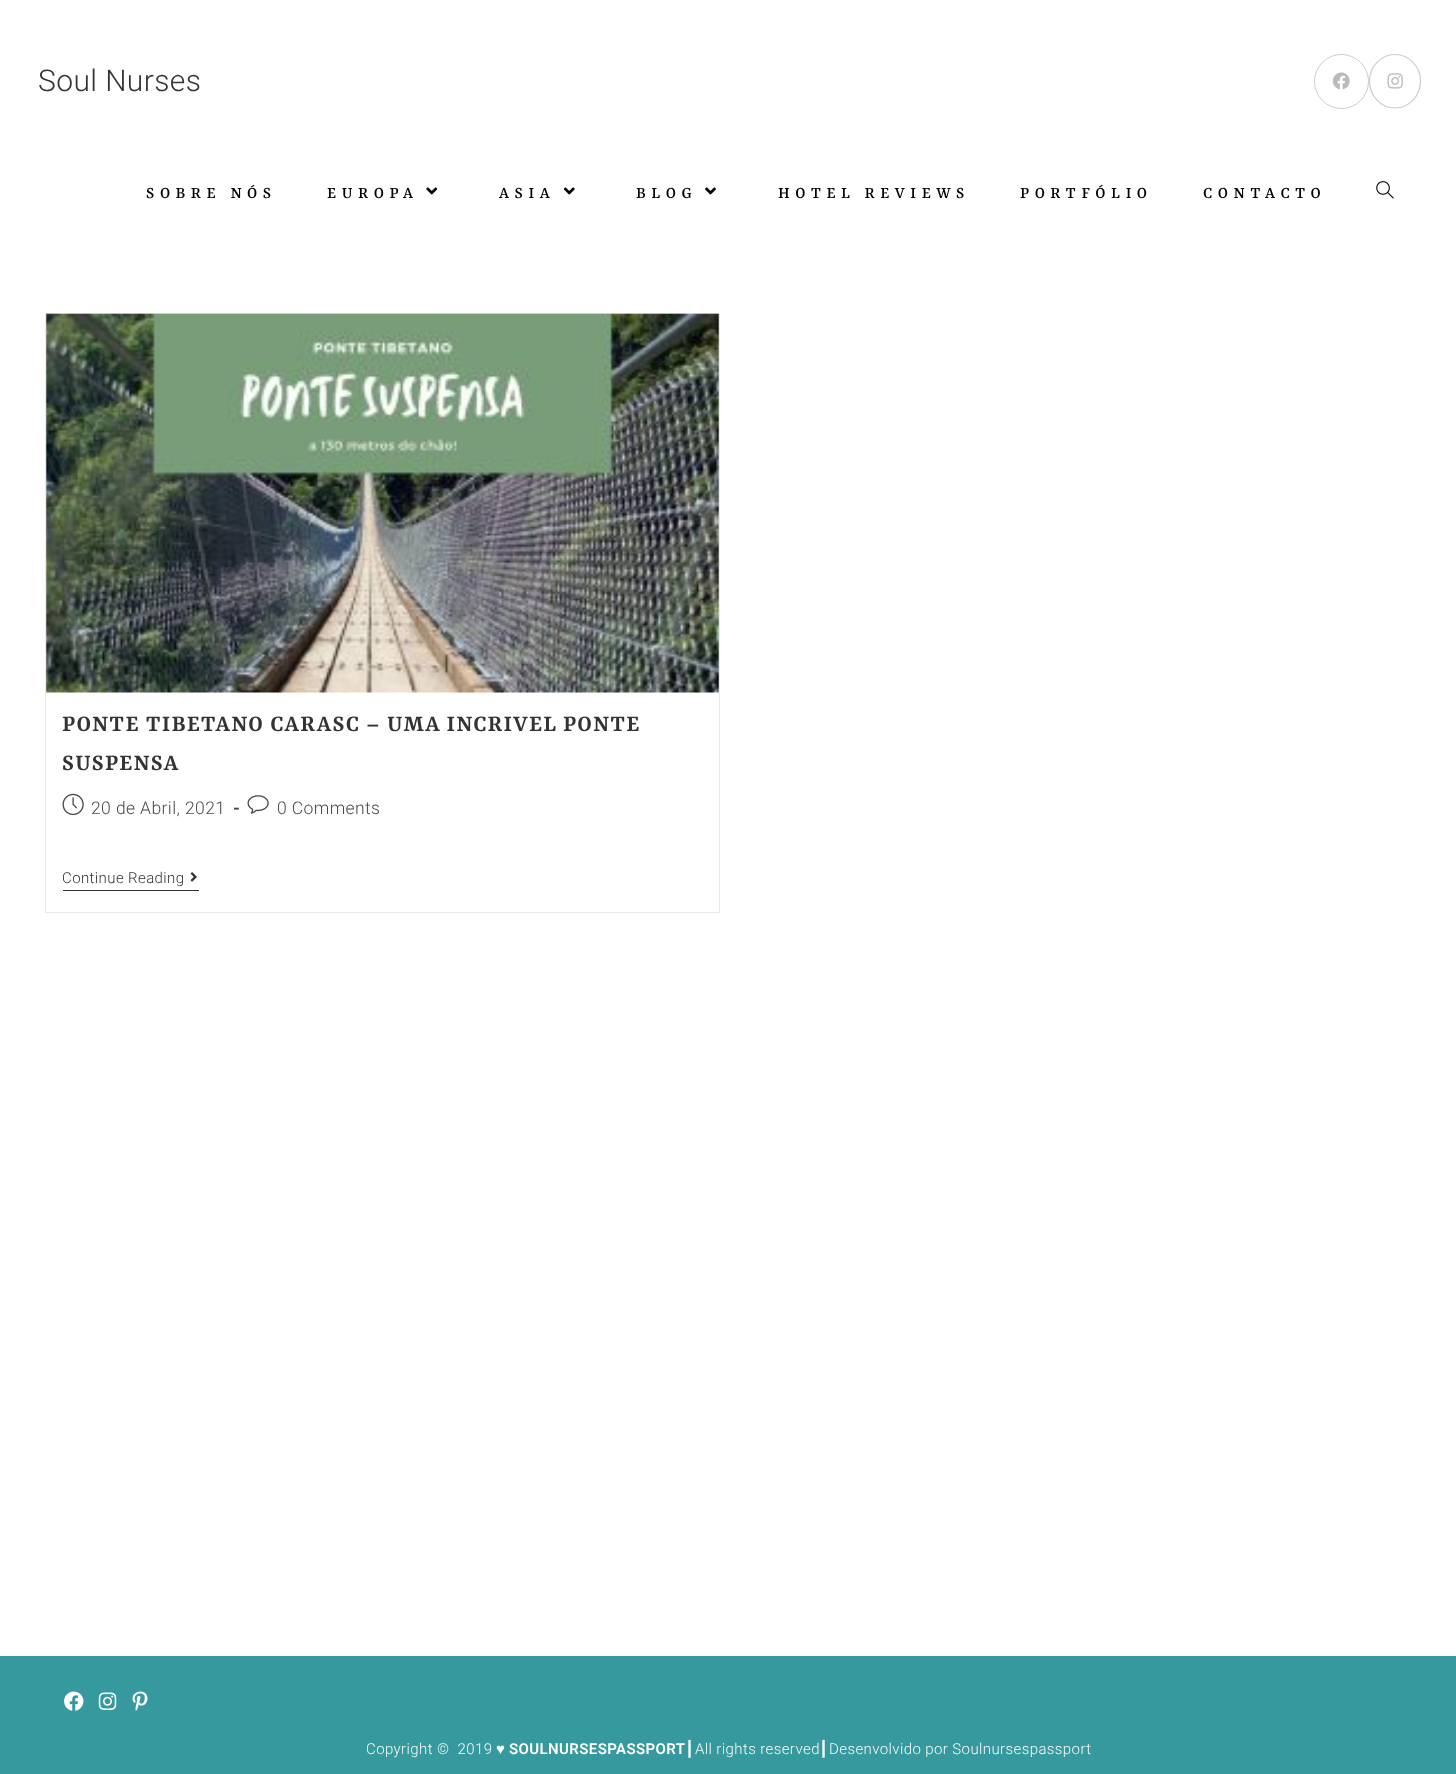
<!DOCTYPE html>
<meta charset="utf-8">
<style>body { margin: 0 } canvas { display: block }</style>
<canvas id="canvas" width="1456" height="1774"></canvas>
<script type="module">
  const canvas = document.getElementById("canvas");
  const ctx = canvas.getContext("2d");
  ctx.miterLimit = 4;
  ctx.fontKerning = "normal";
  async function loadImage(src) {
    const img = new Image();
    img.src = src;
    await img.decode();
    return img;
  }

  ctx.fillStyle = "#ffffff";
  ctx.fillRect(0, 0, 1456, 1774);
  ctx.letterSpacing = "0.4px";
  ctx.font = "300 30px Roboto";
  ctx.fillStyle = "#333333";
  ctx.fillText("Soul Nurses", 38, 91);
  ctx.beginPath();
  ctx.arc(1341.5, 81.5, 27, 0, Math.PI * 2);
  ctx.strokeStyle = "#cccccc";
  ctx.stroke();
  ctx.drawImage(await loadImage("img1.png"), 1332, 72, 18, 18);
  ctx.beginPath();
  ctx.moveTo(1395, 54.5);
  ctx.bezierCurveTo(1409, 54.5, 1420.5, 66.5, 1420.5, 81);
  ctx.bezierCurveTo(1420.5, 96, 1409, 108, 1395, 108);
  ctx.bezierCurveTo(1381, 108, 1369.5, 96, 1369.5, 81);
  ctx.bezierCurveTo(1369.5, 66.5, 1381, 54.5, 1395, 54.5);
  ctx.closePath();
  ctx.lineWidth = 1.2;
  ctx.stroke();
  ctx.drawImage(await loadImage("img2.png"), 1387, 73, 16, 16);
  ctx.letterSpacing = "5.6px";
  ctx.font = "500 17.5px Yrsa";
  ctx.fillStyle = "#000000";
  ctx.fillText("SOBRE NÓS", 146, 198);
  ctx.fillText("EUROPA", 327, 198);
  ctx.drawImage(await loadImage("img3.png"), 426, 187, 12, 8);
  ctx.fillText("ASIA", 499, 198);
  ctx.drawImage(await loadImage("img4.png"), 563, 187, 12, 8);
  ctx.fillText("BLOG", 636, 198);
  ctx.drawImage(await loadImage("img5.png"), 705, 187, 11, 8);
  ctx.fillText("HOTEL REVIEWS", 778, 198);
  ctx.fillText("PORTFÓLIO", 1020, 198);
  ctx.fillText("CONTACTO", 1203, 198);
  ctx.drawImage(await loadImage("img6.png"), 1376, 181, 18, 18);
  ctx.strokeStyle = "#e9e9e9";
  ctx.lineWidth = 1;
  ctx.strokeRect(45.5, 313.5, 674, 599);
  ctx.drawImage(await loadImage("img7.png"), 46, 313, 673, 380);
  ctx.letterSpacing = "1.25px";
  ctx.font = "600 25px Yrsa";
  ctx.fillStyle = "#333333";
  ctx.fillText("PONTE TIBETANO CARASC – UMA INCRIVEL PONTE", 62, 731);
  ctx.fillText("SUSPENSA", 62, 770);
  ctx.drawImage(await loadImage("img8.png"), 62, 793, 22, 23);
  ctx.letterSpacing = "0.4px";
  ctx.font = "300 17.5px Roboto";
  ctx.fillStyle = "#4a4a4a";
  ctx.fillText("20 de Abril, 2021", 91, 814);
  ctx.font = "bold 17.5px Roboto";
  ctx.fillText("-", 233, 814);
  ctx.drawImage(await loadImage("img9.png"), 247, 795, 22, 19);
  ctx.font = "300 17.5px Roboto";
  ctx.fillText("0 Comments", 277, 814);
  ctx.fillStyle = "#333333";
  ctx.fillRect(63, 890, 136, 1);
  ctx.font = "300 15px Roboto";
  ctx.fillText("Continue Reading", 62, 883);
  ctx.drawImage(await loadImage("img10.png"), 190, 872, 7, 10);
  ctx.fillStyle = "#35999d";
  ctx.fillRect(0, 1656, 1456, 118);
  ctx.drawImage(await loadImage("img11.png"), 64, 1691, 20, 20);
  ctx.drawImage(await loadImage("img12.png"), 98, 1692, 19, 18);
  ctx.drawImage(await loadImage("img13.png"), 132, 1691, 16, 20);
  ctx.fillStyle = "#f9f9f9";
  ctx.fillText("Copyright ©  2019", 366, 1754);
  ctx.font = "15px Liberation Serif";
  ctx.fillText("♥", 496, 1754);
  ctx.font = "600 15px Roboto";
  ctx.fillStyle = "#ffffff";
  ctx.fillText("SOULNURSESPASSPORT", 509, 1754);
  ctx.font = "15px DejaVu Sans";
  ctx.fillStyle = "#f9f9f9";
  ctx.fillText("┃", 685, 1754);
  ctx.font = "300 15px Roboto";
  ctx.fillText("All rights reserved", 695, 1754);
  ctx.font = "15px DejaVu Sans";
  ctx.fillText("┃", 819, 1754);
  ctx.font = "300 15px Roboto";
  ctx.fillText("Desenvolvido por Soulnursespassport", 829, 1754);
</script>
